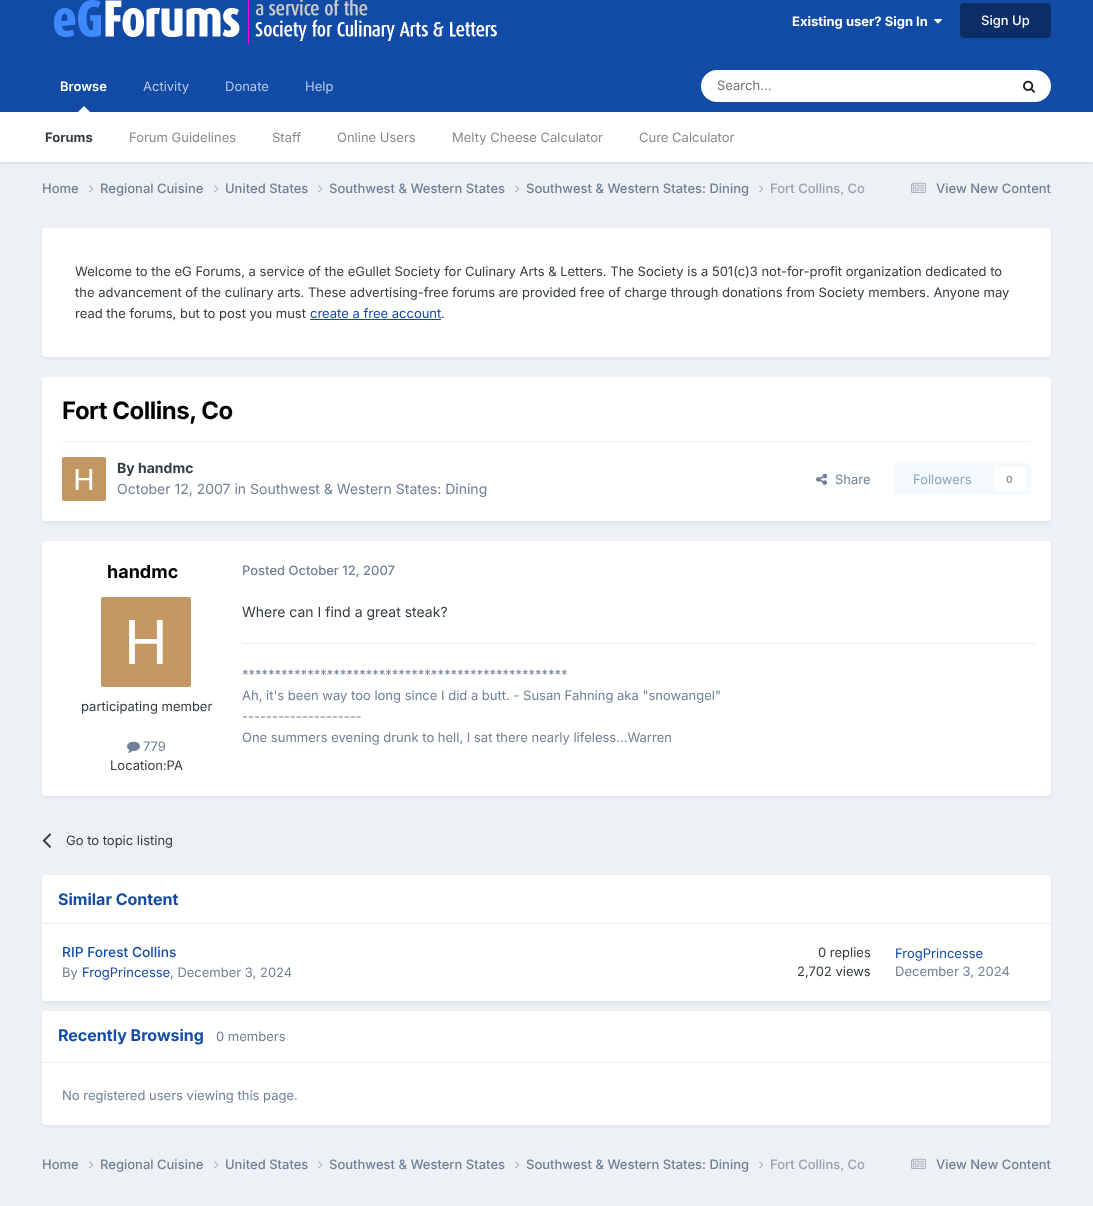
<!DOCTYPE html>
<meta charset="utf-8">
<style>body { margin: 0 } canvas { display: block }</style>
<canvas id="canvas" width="1093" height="1206"></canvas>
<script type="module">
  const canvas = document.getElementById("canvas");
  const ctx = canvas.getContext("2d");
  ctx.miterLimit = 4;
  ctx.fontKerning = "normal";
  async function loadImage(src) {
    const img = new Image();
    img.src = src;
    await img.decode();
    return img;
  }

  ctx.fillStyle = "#edf0f4";
  ctx.fillRect(0, 0, 1093, 1206);
  ctx.fillStyle = "#114ba5";
  ctx.fillRect(0, 0, 1093, 112);
  ctx.drawImage(await loadImage("img1.png"), 54, 0, 443, 44);
  ctx.font = "bold 13px Inter";
  ctx.fillStyle = "#ffffff";
  ctx.fillText("Existing user? Sign In", 792, 26);
  ctx.drawImage(await loadImage("img2.png"), 934, 19, 8, 5);
  ctx.fillStyle = "#0b2e66";
  ctx.beginPath();
  ctx.roundRect(960, 3, 91, 35, 4);
  ctx.fill();
  ctx.font = "500 13px Inter";
  ctx.fillStyle = "#ffffff";
  ctx.fillText("Sign Up", 981, 25);
  ctx.font = "600 13px Inter";
  ctx.fillText("Browse", 60, 91);
  ctx.fillStyle = "rgba(0, 0, 0, 0.1)";
  ctx.filter = "blur(1px)";
  ctx.beginPath();
  ctx.rect(0, 113, 1093, 50);
  ctx.fill();
  ctx.filter = "none";
  ctx.fillStyle = "#ffffff";
  ctx.beginPath();
  ctx.moveTo(90, 112);
  ctx.lineTo(78, 112);
  ctx.lineTo(84, 106);
  ctx.closePath();
  ctx.fill();
  ctx.fillRect(0, 112, 1093, 50);
  ctx.font = "bold 13px Inter";
  ctx.fillStyle = "#353c41";
  ctx.fillText("Forums", 45, 142);
  ctx.font = "13px Inter";
  ctx.fillStyle = "#868a8d";
  ctx.fillText("Forum Guidelines", 129, 142);
  ctx.fillText("Staff", 272, 142);
  ctx.fillText("Online Users", 337, 142);
  ctx.fillText("Melty Cheese Calculator", 452, 142);
  ctx.fillText("Cure Calculator", 639, 142);
  ctx.fillStyle = "#b8c9e4";
  ctx.fillText("Activity", 143, 91);
  ctx.fillText("Donate", 225, 91);
  ctx.fillText("Help", 305, 91);
  ctx.fillStyle = "#ffffff";
  ctx.beginPath();
  ctx.roundRect(701, 70, 350, 32, 16);
  ctx.fill();
  ctx.fillStyle = "#757575";
  ctx.fillText("Search...", 717, 90);
  ctx.drawImage(await loadImage("img3.png"), 1023, 80, 12, 13);
  ctx.font = "500 13px Inter";
  ctx.fillStyle = "#718096";
  ctx.fillText("Home", 42, 193);
  ctx.drawImage(await loadImage("img4.png"), 89, 185, 5, 8);
  ctx.fillText("Regional Cuisine", 100, 193);
  ctx.drawImage(await loadImage("img4.png"), 214, 185, 5, 8);
  ctx.fillText("United States", 225, 193);
  ctx.drawImage(await loadImage("img4.png"), 318, 185, 5, 8);
  ctx.fillText("Southwest & Western States", 329, 193);
  ctx.drawImage(await loadImage("img4.png"), 515, 185, 5, 8);
  ctx.fillText("Southwest & Western States: Dining", 526, 193);
  ctx.drawImage(await loadImage("img4.png"), 759, 185, 5, 8);
  ctx.fillStyle = "#96a2b2";
  ctx.fillText("Fort Collins, Co", 770, 193);
  ctx.drawImage(await loadImage("img5.png"), 911, 182, 15, 11);
  ctx.fillStyle = "#718096";
  ctx.fillText("View New Content", 936, 193);
  ctx.fillStyle = "rgba(11, 46, 102, 0.1)";
  ctx.filter = "blur(2px)";
  ctx.beginPath();
  ctx.roundRect(43, 231, 1007, 127, 3);
  ctx.fill();
  ctx.filter = "none";
  ctx.fillStyle = "#ffffff";
  ctx.beginPath();
  ctx.roundRect(42, 228, 1009, 129, 4);
  ctx.fill();
  ctx.font = "13px Inter";
  ctx.fillStyle = "#353c41";
  ctx.fillText("Welcome to the eG Forums, a service of the eGullet Society for Culinary Arts & Letters. The Society is a 501(c)3 not-for-profit organization dedicated to", 75, 276);
  ctx.fillText("the advancement of the culinary arts. These advertising-free forums are provided free of charge through donations from Society members. Anyone may", 75, 297);
  ctx.fillText("read the forums, but to post you must", 75, 318);
  ctx.fillStyle = "#114ba5";
  ctx.fillText("create a free account", 310, 318);
  ctx.fillRect(310, 319, 131, 1);
  ctx.fillStyle = "#353c41";
  ctx.fillText(".", 441, 318);
  ctx.fillStyle = "rgba(11, 46, 102, 0.1)";
  ctx.filter = "blur(2px)";
  ctx.beginPath();
  ctx.roundRect(43, 380, 1007, 142, 3);
  ctx.fill();
  ctx.filter = "none";
  ctx.fillStyle = "#ffffff";
  ctx.beginPath();
  ctx.roundRect(42, 377, 1009, 144, 4);
  ctx.fill();
  ctx.letterSpacing = "-0.5px";
  ctx.font = "bold 24px Inter";
  ctx.fillStyle = "#000000";
  ctx.fillText("Fort Collins, Co", 62, 419);
  ctx.fillStyle = "#efeff0";
  ctx.fillRect(62, 441, 969, 1);
  ctx.drawImage(await loadImage("img6.png"), 62, 457, 44, 44);
  ctx.letterSpacing = "0px";
  ctx.font = "bold 14px Inter";
  ctx.fillStyle = "#353c41";
  ctx.fillText("By handmc", 117, 473);
  ctx.font = "14px Inter";
  ctx.fillStyle = "#718096";
  ctx.fillText("October 12, 2007 in Southwest & Western States: Dining", 117, 494);
  ctx.drawImage(await loadImage("img7.png"), 816, 473, 12, 12);
  ctx.font = "13px Inter";
  ctx.fillText("Share", 835, 484);
  ctx.fillStyle = "#f4f9fd";
  ctx.beginPath();
  ctx.roundRect(894, 463, 137, 32, 4);
  ctx.fill();
  ctx.fillStyle = "#87a6bc";
  ctx.fillText("Followers", 913, 484);
  ctx.fillStyle = "#ffffff";
  ctx.beginPath();
  ctx.roundRect(994, 467, 32, 24, 4);
  ctx.fill();
  ctx.font = "bold 10px Inter";
  ctx.fillStyle = "#9a9ea0";
  ctx.fillText("0", 1006, 483);
  ctx.fillStyle = "rgba(11, 46, 102, 0.1)";
  ctx.filter = "blur(2px)";
  ctx.beginPath();
  ctx.roundRect(43, 544, 1007, 253, 3);
  ctx.fill();
  ctx.filter = "none";
  ctx.fillStyle = "#ffffff";
  ctx.beginPath();
  ctx.roundRect(42, 541, 1009, 255, 4);
  ctx.fill();
  ctx.font = "bold 18px Inter";
  ctx.fillStyle = "#000000";
  ctx.fillText("handmc", 107, 578);
  ctx.drawImage(await loadImage("img8.png"), 101, 597, 90, 90);
  ctx.font = "13px Inter";
  ctx.fillStyle = "#353c41";
  ctx.fillText("participating member", 81, 711);
  ctx.drawImage(await loadImage("img9.png"), 127, 741, 13, 12);
  ctx.fillStyle = "#718096";
  ctx.fillText("779", 143, 751);
  ctx.fillStyle = "#353c41";
  ctx.fillText("Location:PA", 110, 770);
  ctx.font = "500 13px Inter";
  ctx.fillStyle = "#718096";
  ctx.fillText("Posted October 12, 2007", 242, 575);
  ctx.font = "14px Inter";
  ctx.fillStyle = "#353c41";
  ctx.fillText("Where can I find a great steak?", 242, 617);
  ctx.fillStyle = "#eaecef";
  ctx.fillRect(242, 643, 793, 1);
  ctx.font = "13px Inter";
  ctx.fillStyle = "#718096";
  ctx.fillText("**************************************************", 242, 679);
  ctx.fillText("Ah, it's been way too long since I did a butt. - Susan Fahning aka \"snowangel\"", 242, 700);
  ctx.fillText("--------------------", 242, 721);
  ctx.fillText("One summers evening drunk to hell, I sat there nearly lifeless…Warren", 242, 742);
  ctx.drawImage(await loadImage("img10.png"), 42, 833, 10, 15);
  ctx.fillStyle = "#353c41";
  ctx.fillText("Go to topic listing", 66, 845);
  ctx.fillStyle = "rgba(11, 46, 102, 0.1)";
  ctx.filter = "blur(2px)";
  ctx.beginPath();
  ctx.roundRect(43, 878, 1007, 124, 3);
  ctx.fill();
  ctx.filter = "none";
  ctx.fillStyle = "#ffffff";
  ctx.beginPath();
  ctx.roundRect(42, 875, 1009, 126, 4);
  ctx.fill();
  ctx.beginPath();
  ctx.roundRect(42, 875, 1009, 49, [4, 4, 0, 0]);
  ctx.fill();
  ctx.fillStyle = "#eaecef";
  ctx.fillRect(42, 923, 1009, 1);
  ctx.font = "bold 16px Inter";
  ctx.fillStyle = "#114ba5";
  ctx.fillText("Similar Content", 58, 905);
  ctx.font = "500 13.75px Inter";
  ctx.fillText("RIP Forest Collins", 62, 957);
  ctx.font = "13px Inter";
  ctx.fillStyle = "#718096";
  ctx.fillText("By", 62, 977);
  ctx.fillStyle = "#114ba5";
  ctx.fillText("FrogPrincesse", 82, 977);
  ctx.fillStyle = "#718096";
  ctx.fillText(", December 3, 2024", 170, 977);
  ctx.fillStyle = "#353c41";
  ctx.fillText("0 replies", 818, 957);
  ctx.fillText("2,702 views", 797, 976);
  ctx.fillStyle = "#114ba5";
  ctx.fillText("FrogPrincesse", 895, 958);
  ctx.fillStyle = "#718096";
  ctx.fillText("December 3, 2024", 895, 976);
  ctx.fillStyle = "rgba(11, 46, 102, 0.1)";
  ctx.filter = "blur(2px)";
  ctx.beginPath();
  ctx.roundRect(43, 1014, 1007, 112, 3);
  ctx.fill();
  ctx.filter = "none";
  ctx.fillStyle = "#ffffff";
  ctx.beginPath();
  ctx.roundRect(42, 1011, 1009, 114, 4);
  ctx.fill();
  ctx.beginPath();
  ctx.roundRect(42, 1011, 1009, 52, [4, 4, 0, 0]);
  ctx.fill();
  ctx.fillStyle = "#eaecef";
  ctx.fillRect(42, 1062, 1009, 1);
  ctx.font = "bold 16px Inter";
  ctx.fillStyle = "#114ba5";
  ctx.fillText("Recently Browsing", 58, 1041);
  ctx.font = "13px Inter";
  ctx.fillStyle = "#718096";
  ctx.fillText("0 members", 216, 1041);
  ctx.fillText("No registered users viewing this page.", 62, 1100);
  ctx.font = "500 13px Inter";
  ctx.fillText("Home", 42, 1169);
  ctx.drawImage(await loadImage("img4.png"), 89, 1161, 5, 8);
  ctx.fillText("Regional Cuisine", 100, 1169);
  ctx.drawImage(await loadImage("img4.png"), 214, 1161, 5, 8);
  ctx.fillText("United States", 225, 1169);
  ctx.drawImage(await loadImage("img4.png"), 318, 1161, 5, 8);
  ctx.fillText("Southwest & Western States", 329, 1169);
  ctx.drawImage(await loadImage("img4.png"), 515, 1161, 5, 8);
  ctx.fillText("Southwest & Western States: Dining", 526, 1169);
  ctx.drawImage(await loadImage("img4.png"), 759, 1161, 5, 8);
  ctx.fillStyle = "#96a2b2";
  ctx.fillText("Fort Collins, Co", 770, 1169);
  ctx.drawImage(await loadImage("img5.png"), 911, 1158, 15, 11);
  ctx.fillStyle = "#718096";
  ctx.fillText("View New Content", 936, 1169);
</script>
